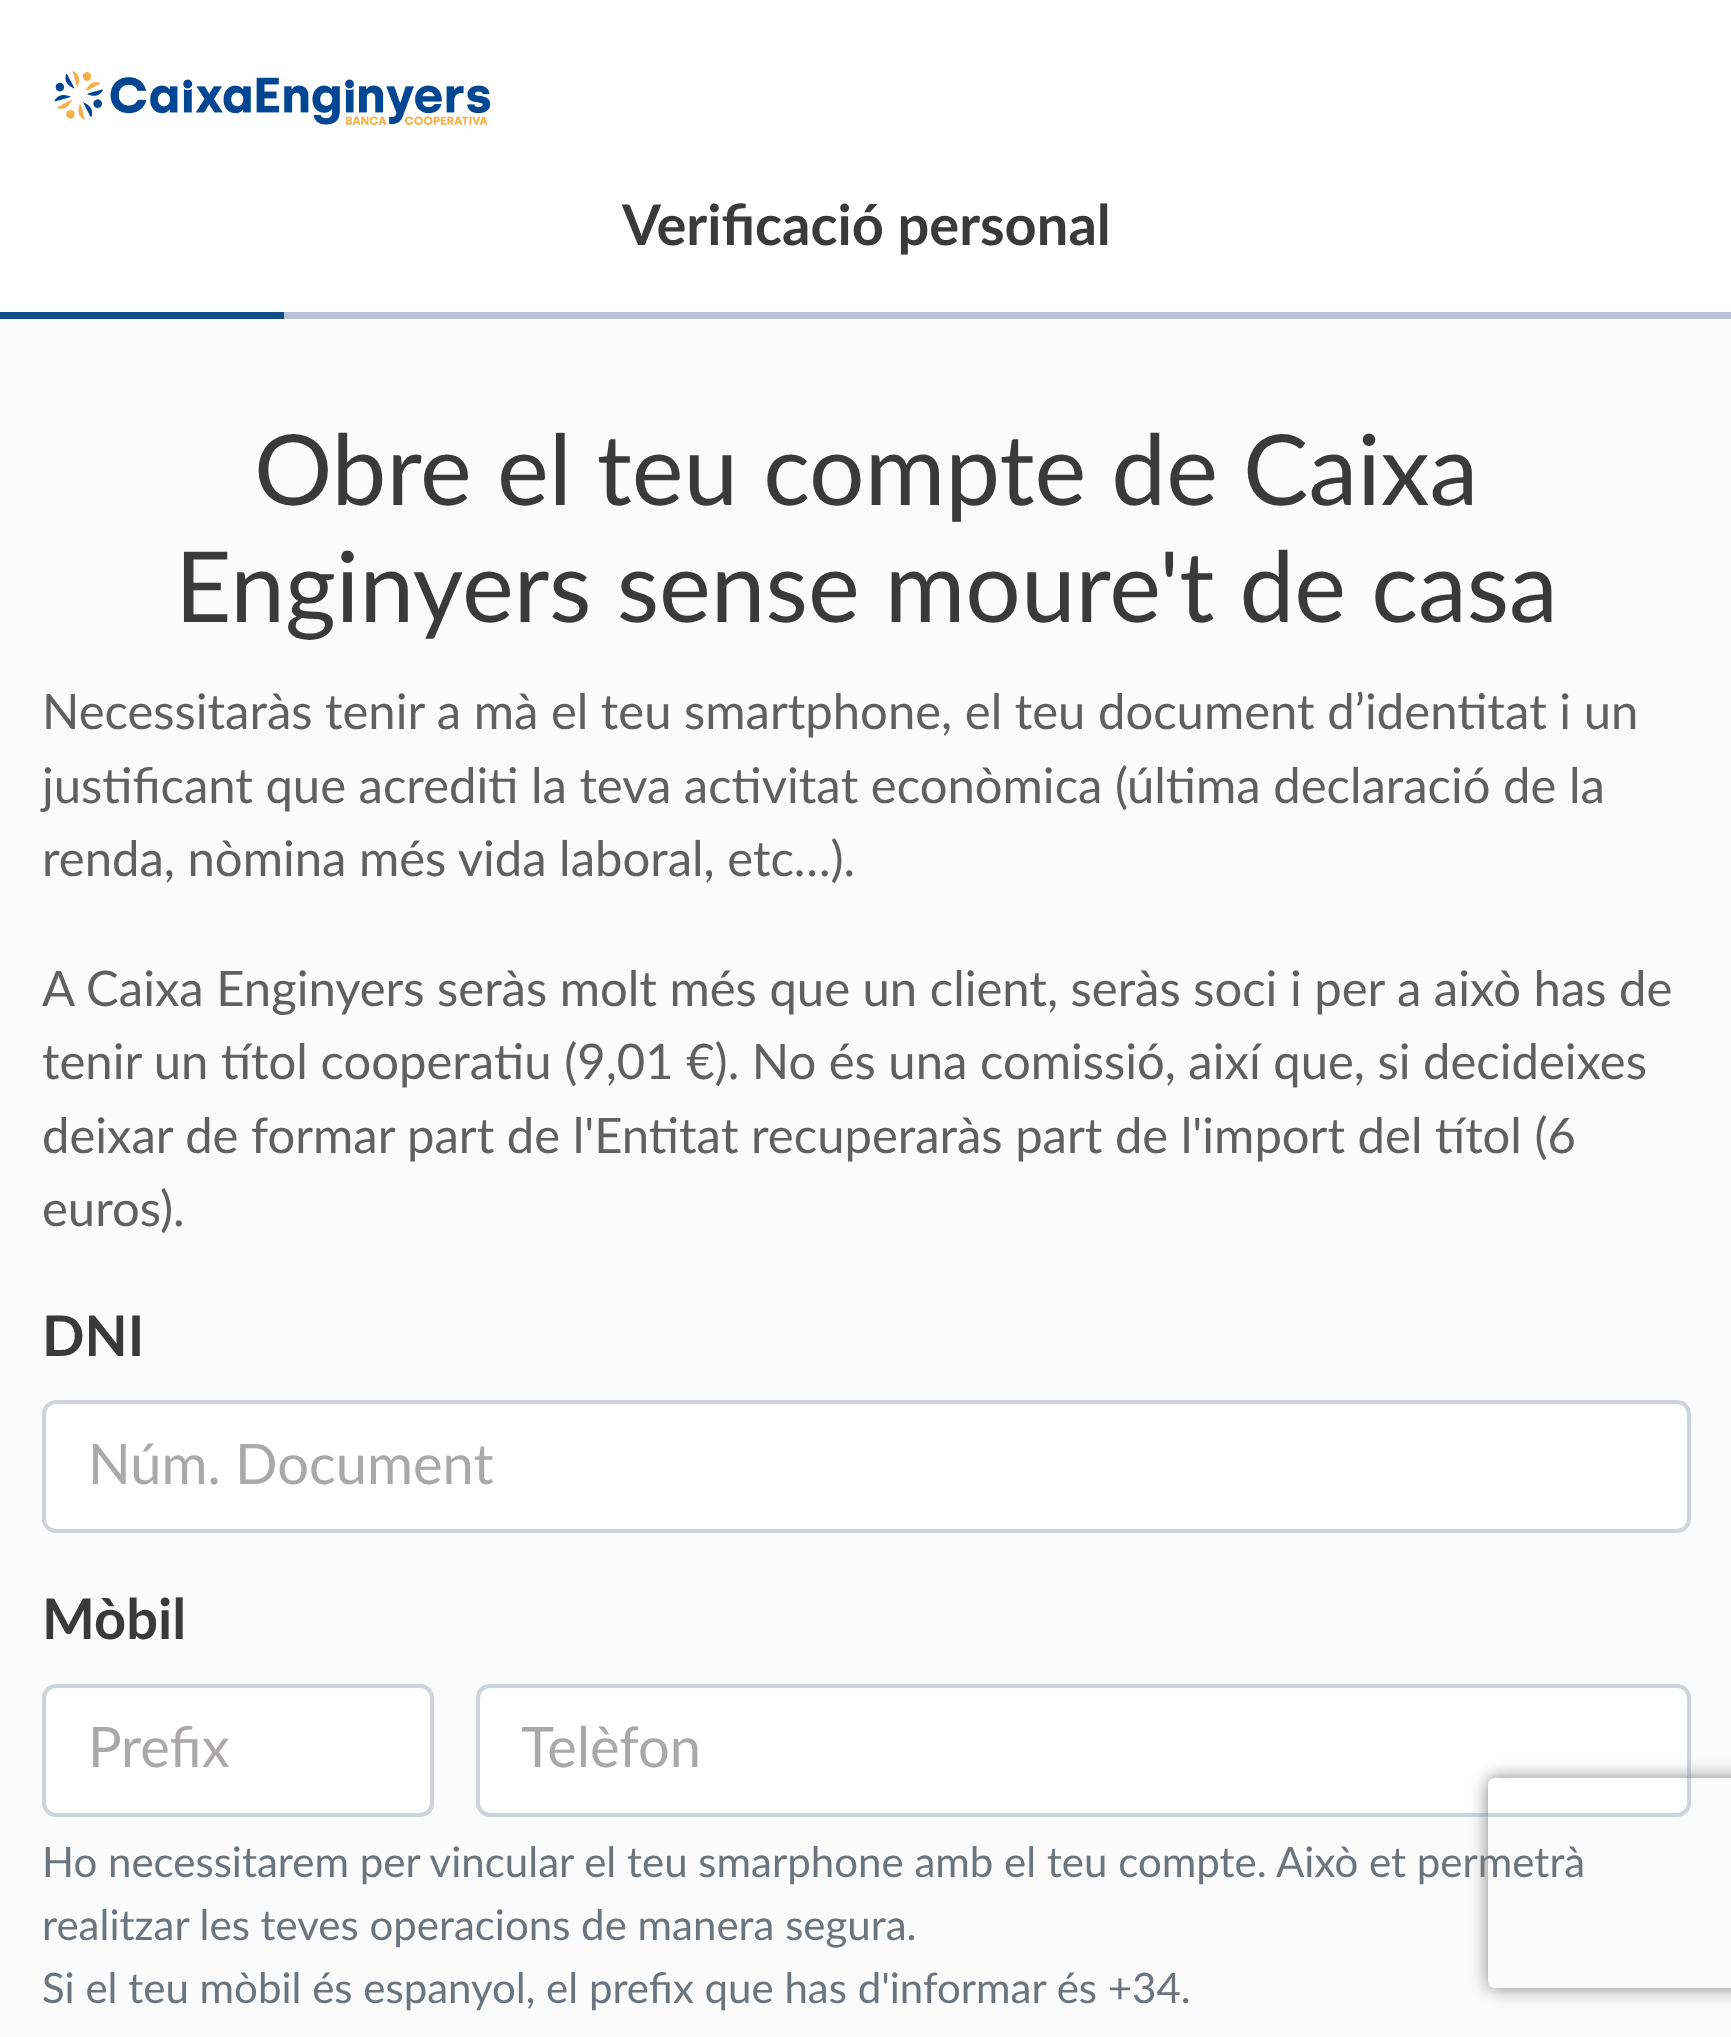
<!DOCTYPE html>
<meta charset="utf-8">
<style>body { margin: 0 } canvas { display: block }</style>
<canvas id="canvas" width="1731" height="2037"></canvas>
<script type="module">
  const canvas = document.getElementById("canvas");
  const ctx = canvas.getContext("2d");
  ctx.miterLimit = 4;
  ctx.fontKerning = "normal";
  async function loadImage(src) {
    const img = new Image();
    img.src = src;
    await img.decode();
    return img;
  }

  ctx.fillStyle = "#ffffff";
  ctx.fillRect(0, 0, 1731, 2037);
  ctx.drawImage(await loadImage("img1.png"), 54, 71, 437, 54);
  ctx.font = "bold 56px Lato";
  ctx.fillStyle = "#3a3a3a";
  ctx.fillText("Verificació personal", 622, 245);
  ctx.fillStyle = "#bac1d1";
  ctx.fillRect(284, 312, 1447, 7);
  ctx.fillStyle = "#0f4d82";
  ctx.fillRect(0, 312, 284, 7);
  ctx.fillStyle = "#fbfbfb";
  ctx.fillRect(0, 319, 1731, 1718);
  ctx.font = "98px Lato";
  ctx.fillStyle = "#3a3a3a";
  ctx.fillText("Obre el teu compte de Caixa", 254, 505);
  ctx.fillText("Enginyers sense moure't de casa", 175, 622);
  ctx.font = "49px Lato";
  ctx.fillStyle = "#606060";
  ctx.fillText("Necessitaràs tenir a mà el teu smartphone, el teu document d’identitat i un", 42, 729);
  ctx.fillText("justificant que acrediti la teva activitat econòmica (última declaració de la", 42, 803);
  ctx.fillText("renda, nòmina més vida laboral, etc…).", 42, 876);
  ctx.fillText("A Caixa Enginyers seràs molt més que un client, seràs soci i per a això has de", 42, 1006);
  ctx.fillText("tenir un títol cooperatiu (9,01 €). No és una comissió, així que, si decideixes", 42, 1079);
  ctx.fillText("deixar de formar part de l'Entitat recuperaràs part de l'import del títol (6", 42, 1153);
  ctx.fillText("euros).", 42, 1226);
  ctx.font = "bold 56px Lato";
  ctx.fillStyle = "#3a3a3a";
  ctx.fillText("DNI", 42, 1356);
  ctx.fillStyle = "#ffffff";
  ctx.beginPath();
  ctx.roundRect(44, 1402, 1645, 129, 12);
  ctx.fill();
  ctx.strokeStyle = "#ced4da";
  ctx.lineWidth = 4;
  ctx.stroke();
  ctx.font = "56px Lato";
  ctx.fillStyle = "#aaa8a8";
  ctx.fillText("Núm. Document", 88, 1484);
  ctx.font = "bold 56px Lato";
  ctx.fillStyle = "#3a3a3a";
  ctx.fillText("Mòbil", 42, 1639);
  ctx.fillStyle = "#ffffff";
  ctx.beginPath();
  ctx.roundRect(44, 1686, 388, 129, 12);
  ctx.fill();
  ctx.stroke();
  ctx.font = "56px Lato";
  ctx.fillStyle = "#aaa8a8";
  ctx.fillText("Prefix", 88, 1767);
  ctx.fillStyle = "#ffffff";
  ctx.beginPath();
  ctx.roundRect(478, 1686, 1211, 129, 12);
  ctx.fill();
  ctx.stroke();
  ctx.save();
  ctx.beginPath();
  ctx.rect(522, 1719, 1123, 66);
  ctx.clip();
  ctx.fillStyle = "#aaa8a8";
  ctx.fillText("Telèfon", 521, 1767);
  ctx.restore();
  ctx.font = "42px Lato";
  ctx.fillStyle = "#6c757d";
  ctx.fillText("Ho necessitarem per vincular el teu smarphone amb el teu compte. Això et permetrà", 42, 1877);
  ctx.fillText("realitzar les teves operacions de manera segura.", 42, 1940);
  ctx.fillText("Si el teu mòbil és espanyol, el prefix que has d'informar és +34.", 42, 2003);
  ctx.save();
  ctx.beginPath();
  ctx.moveTo(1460, 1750);
  ctx.lineTo(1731, 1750);
  ctx.lineTo(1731, 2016);
  ctx.lineTo(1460, 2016);
  ctx.closePath();
  ctx.moveTo(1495, 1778);
  ctx.lineTo(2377, 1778);
  ctx.bezierCurveTo(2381, 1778, 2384, 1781, 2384, 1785);
  ctx.lineTo(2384, 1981);
  ctx.bezierCurveTo(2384, 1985, 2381, 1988, 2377, 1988);
  ctx.lineTo(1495, 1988);
  ctx.bezierCurveTo(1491, 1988, 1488, 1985, 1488, 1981);
  ctx.lineTo(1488, 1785);
  ctx.bezierCurveTo(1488, 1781, 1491, 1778, 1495, 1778);
  ctx.closePath();
  ctx.clip("evenodd");
  ctx.fillStyle = "#808080";
  ctx.filter = "blur(9px)";
  ctx.beginPath();
  ctx.roundRect(1488, 1778, 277, 210, 7);
  ctx.fill();
  ctx.filter = "none";
  ctx.restore();
</script>
